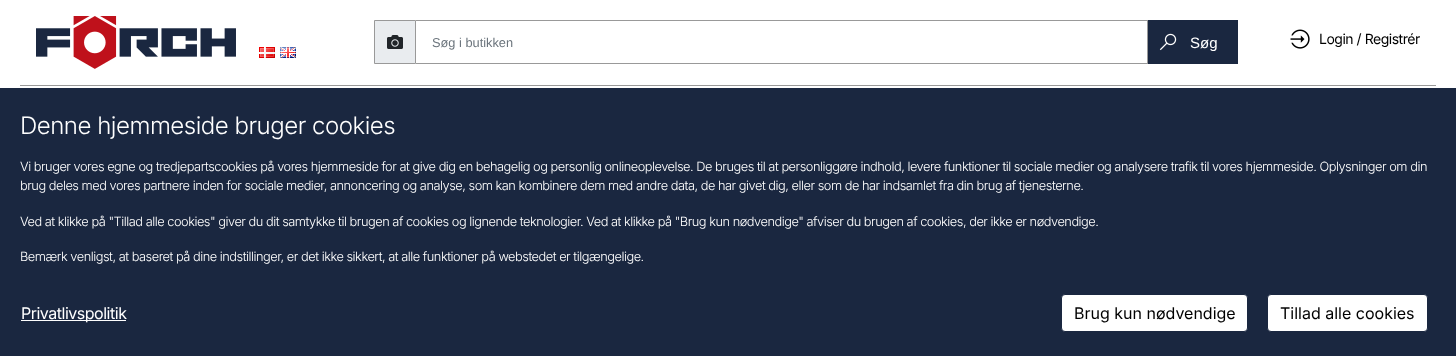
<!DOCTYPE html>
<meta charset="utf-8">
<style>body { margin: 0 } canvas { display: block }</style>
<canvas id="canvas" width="1456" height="356"></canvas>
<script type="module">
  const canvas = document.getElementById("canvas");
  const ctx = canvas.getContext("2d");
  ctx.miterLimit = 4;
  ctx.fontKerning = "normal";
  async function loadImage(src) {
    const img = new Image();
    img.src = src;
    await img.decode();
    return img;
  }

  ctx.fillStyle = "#ffffff";
  ctx.fillRect(0, 0, 1456, 356);
  ctx.drawImage(await loadImage("img1.png"), 36, 16, 200, 53);
  ctx.drawImage(await loadImage("img2.png"), 259, 47, 16, 11);
  ctx.drawImage(await loadImage("img3.png"), 280, 47, 16, 11);
  ctx.fillStyle = "#e9ecef";
  ctx.beginPath();
  ctx.rect(374.5, 20.5, 41, 43);
  ctx.fill();
  ctx.strokeStyle = "#999999";
  ctx.stroke();
  ctx.drawImage(await loadImage("img4.png"), 387, 35, 16, 14);
  ctx.fillStyle = "#999999";
  ctx.fillRect(416, 20, 732, 1);
  ctx.fillRect(1147, 20, 1, 44);
  ctx.fillRect(416, 63, 732, 1);
  ctx.font = "12.8px Liberation Sans";
  ctx.fillStyle = "#6c757d";
  ctx.fillText("Søg i butikken", 432, 47);
  ctx.fillStyle = "#1a2740";
  ctx.fillRect(1148, 20, 90, 44);
  ctx.drawImage(await loadImage("img5.png"), 1159, 33, 18, 18);
  ctx.font = "15px Liberation Sans";
  ctx.fillStyle = "#ffffff";
  ctx.fillText("Søg", 1190, 48);
  ctx.drawImage(await loadImage("img6.png"), 1290, 29, 20, 20);
  ctx.letterSpacing = "-0.48px";
  ctx.font = "14px Inter";
  ctx.fillStyle = "#000000";
  ctx.fillText("Login / Registrér", 1319, 44);
  ctx.fillStyle = "#999999";
  ctx.fillRect(20, 85, 1416, 1);
  ctx.fillStyle = "#1a2740";
  ctx.fillRect(0, 88, 1456, 268);
  ctx.font = "300 24px Inter";
  ctx.fillStyle = "#ffffff";
  ctx.fillText("Denne hjemmeside bruger cookies", 20, 134);
  ctx.font = "300 12.8px Inter";
  ctx.fillText("Vi bruger vores egne og tredjepartscookies på vores hjemmeside for at give dig en behagelig og personlig onlineoplevelse. De bruges til at personliggøre indhold, levere funktioner til sociale medier og analysere trafik til vores hjemmeside. Oplysninger om din", 20, 171);
  ctx.fillText("brug deles med vores partnere inden for sociale medier, annoncering og analyse, som kan kombinere dem med andre data, de har givet dig, eller som de har indsamlet fra din brug af tjenesterne.", 20, 190);
  ctx.fillText("Ved at klikke på \"Tillad alle cookies\" giver du dit samtykke til brugen af cookies og lignende teknologier. Ved at klikke på \"Brug kun nødvendige\" afviser du brugen af cookies, der ikke er nødvendige.", 20, 226);
  ctx.fillText("Bemærk venligst, at baseret på dine indstillinger, er det ikke sikkert, at alle funktioner på webstedet er tilgængelige.", 20, 261);
  ctx.fillRect(21, 320, 105, 1);
  ctx.font = "16px Inter";
  ctx.fillText("Privatlivspolitik", 21, 319);
  ctx.beginPath();
  ctx.roundRect(1061.5, 294.5, 186, 37, 3.5);
  ctx.fill();
  ctx.strokeStyle = "#1a2740";
  ctx.stroke();
  ctx.letterSpacing = "0px";
  ctx.fillStyle = "#000000";
  ctx.fillText("Brug kun nødvendige", 1074, 319);
  ctx.fillStyle = "#ffffff";
  ctx.beginPath();
  ctx.roundRect(1267.5, 294.5, 160, 37, 3.5);
  ctx.fill();
  ctx.stroke();
  ctx.fillStyle = "#000000";
  ctx.fillText("Tillad alle cookies", 1280, 319);
</script>
